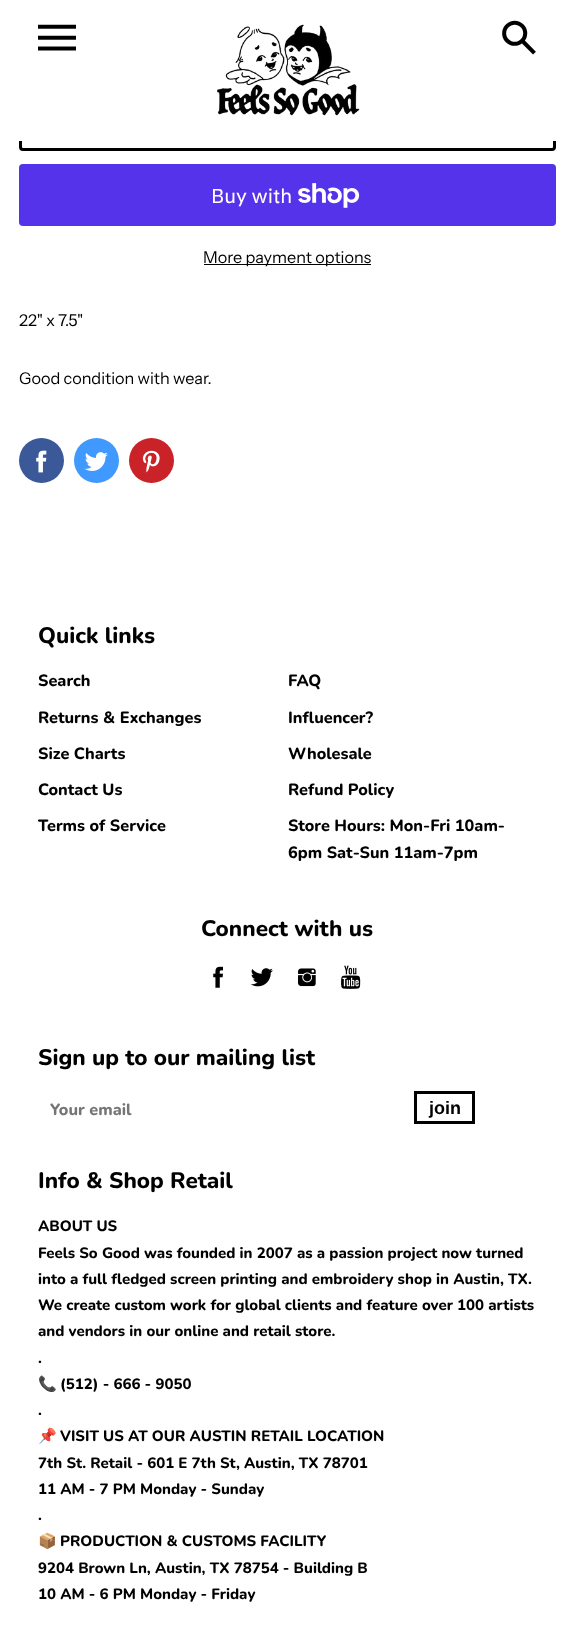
<!DOCTYPE html>
<meta charset="utf-8">
<style>body { margin: 0 } canvas { display: block }</style>
<canvas id="canvas" width="575" height="1627"></canvas>
<script type="module">
  const canvas = document.getElementById("canvas");
  const ctx = canvas.getContext("2d");
  ctx.miterLimit = 4;
  ctx.fontKerning = "normal";
  async function loadImage(src) {
    const img = new Image();
    img.src = src;
    await img.decode();
    return img;
  }

  ctx.fillStyle = "#ffffff";
  ctx.fillRect(0, 0, 575, 1627);
  ctx.beginPath();
  ctx.roundRect(20.5, 97.5, 534, 52, 2.5);
  ctx.strokeStyle = "#000000";
  ctx.lineWidth = 3;
  ctx.stroke();
  ctx.fillRect(19, 96, 537, 45);
  ctx.font = "38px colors";
  ctx.fillStyle = "#000000";
  ctx.fillText("1", 38, 59);
  ctx.drawImage(await loadImage("img1.png"), 217, 24, 143, 92);
  ctx.fillText("2", 500, 59);
  ctx.fillStyle = "#5433eb";
  ctx.beginPath();
  ctx.roundRect(19, 164, 537, 62, 4);
  ctx.fill();
  ctx.font = "20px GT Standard";
  ctx.fillStyle = "#ffffff";
  ctx.fillText("Buy with", 211, 203);
  ctx.drawImage(await loadImage("img2.png"), 298, 183, 62, 25);
  ctx.fillStyle = "#000000";
  ctx.fillRect(204, 264, 167, 1);
  ctx.font = "16.25px Instrument Sans";
  ctx.fillText("More payment options", 203, 263);
  ctx.fillText("22\" x 7.5\"", 19, 326);
  ctx.fillText("Good condition with wear.", 19, 384);
  ctx.fillStyle = "#3b5998";
  ctx.beginPath();
  ctx.arc(41.5, 460.5, 22.5, 0, Math.PI * 2);
  ctx.fill();
  ctx.drawImage(await loadImage("img3.png"), 36, 450, 11, 23);
  ctx.fillStyle = "#4099ff";
  ctx.beginPath();
  ctx.arc(96.5, 460.5, 22.5, 0, Math.PI * 2);
  ctx.fill();
  ctx.drawImage(await loadImage("img4.png"), 84, 452, 24, 19);
  ctx.fillStyle = "#c92228";
  ctx.beginPath();
  ctx.arc(151.5, 460.5, 22.5, 0, Math.PI * 2);
  ctx.fill();
  ctx.drawImage(await loadImage("img5.png"), 142, 450, 18, 23);
  ctx.font = "800 22.5px Nunito";
  ctx.fillStyle = "#000000";
  ctx.fillText("Quick links", 38, 643);
  ctx.font = "800 16.25px Nunito";
  ctx.fillText("Search", 38, 686);
  ctx.fillText("Returns & Exchanges", 38, 723);
  ctx.fillText("Size Charts", 38, 759);
  ctx.fillText("Contact Us", 38, 795);
  ctx.fillText("Terms of Service", 38, 831);
  ctx.fillText("FAQ", 288, 686);
  ctx.fillText("Influencer?", 288, 723);
  ctx.fillText("Wholesale", 288, 759);
  ctx.fillText("Refund Policy", 288, 795);
  ctx.fillText("Store Hours: Mon-Fri 10am-", 288, 831);
  ctx.fillText("6pm Sat-Sun 11am-7pm", 288, 858);
  ctx.font = "800 22.5px Nunito";
  ctx.fillText("Connect with us", 201, 936);
  ctx.drawImage(await loadImage("img6.png"), 213, 966, 10, 22);
  ctx.drawImage(await loadImage("img7.png"), 250, 968, 23, 19);
  ctx.drawImage(await loadImage("img8.png"), 298, 968, 18, 19);
  ctx.drawImage(await loadImage("img9.png"), 341, 965, 20, 24);
  ctx.fillText("Sign up to our mailing list", 38, 1065);
  ctx.font = "800 16.25px Nunito";
  ctx.fillStyle = "#757575";
  ctx.fillText("Your email", 50, 1115);
  ctx.strokeRect(415.5, 1092.5, 58, 30);
  ctx.font = "bold 18px Liberation Sans";
  ctx.fillStyle = "#000000";
  ctx.fillText("join", 429, 1114);
  ctx.font = "800 22.5px Nunito";
  ctx.fillText("Info & Shop Retail", 38, 1188);
  ctx.font = "800 15px Nunito";
  ctx.fillText("ABOUT US", 38, 1231);
  ctx.fillText("Feels So Good was founded in 2007 as a passion project now turned", 38, 1258);
  ctx.fillText("into a full fledged screen printing and embroidery shop in Austin, TX.", 38, 1284);
  ctx.fillText("We create custom work for global clients and feature over 100 artists", 38, 1310);
  ctx.fillText("and vendors in our online and retail store.", 38, 1336);
  ctx.fillText(".", 38, 1363);
  ctx.font = "bold 15px Noto Color Emoji";
  ctx.fillText("📞", 38, 1389);
  ctx.font = "800 15px Nunito";
  ctx.fillText("(512) - 666 - 9050", 60, 1389);
  ctx.fillText(".", 38, 1415);
  ctx.font = "bold 15px Noto Color Emoji";
  ctx.fillText("📌", 38, 1441);
  ctx.font = "800 15px Nunito";
  ctx.fillText("VISIT US AT OUR AUSTIN RETAIL LOCATION", 60, 1441);
  ctx.fillText("7th St. Retail - 601 E 7th St, Austin, TX 78701", 38, 1468);
  ctx.fillText("11 AM - 7 PM Monday - Sunday", 38, 1494);
  ctx.fillText(".", 38, 1520);
  ctx.font = "bold 15px Noto Color Emoji";
  ctx.fillText("📦", 38, 1546);
  ctx.font = "800 15px Nunito";
  ctx.fillText("PRODUCTION & CUSTOMS FACILITY", 60, 1546);
  ctx.fillText("9204 Brown Ln, Austin, TX 78754 - Building B", 38, 1573);
  ctx.fillText("10 AM - 6 PM Monday - Friday", 38, 1599);
</script>
